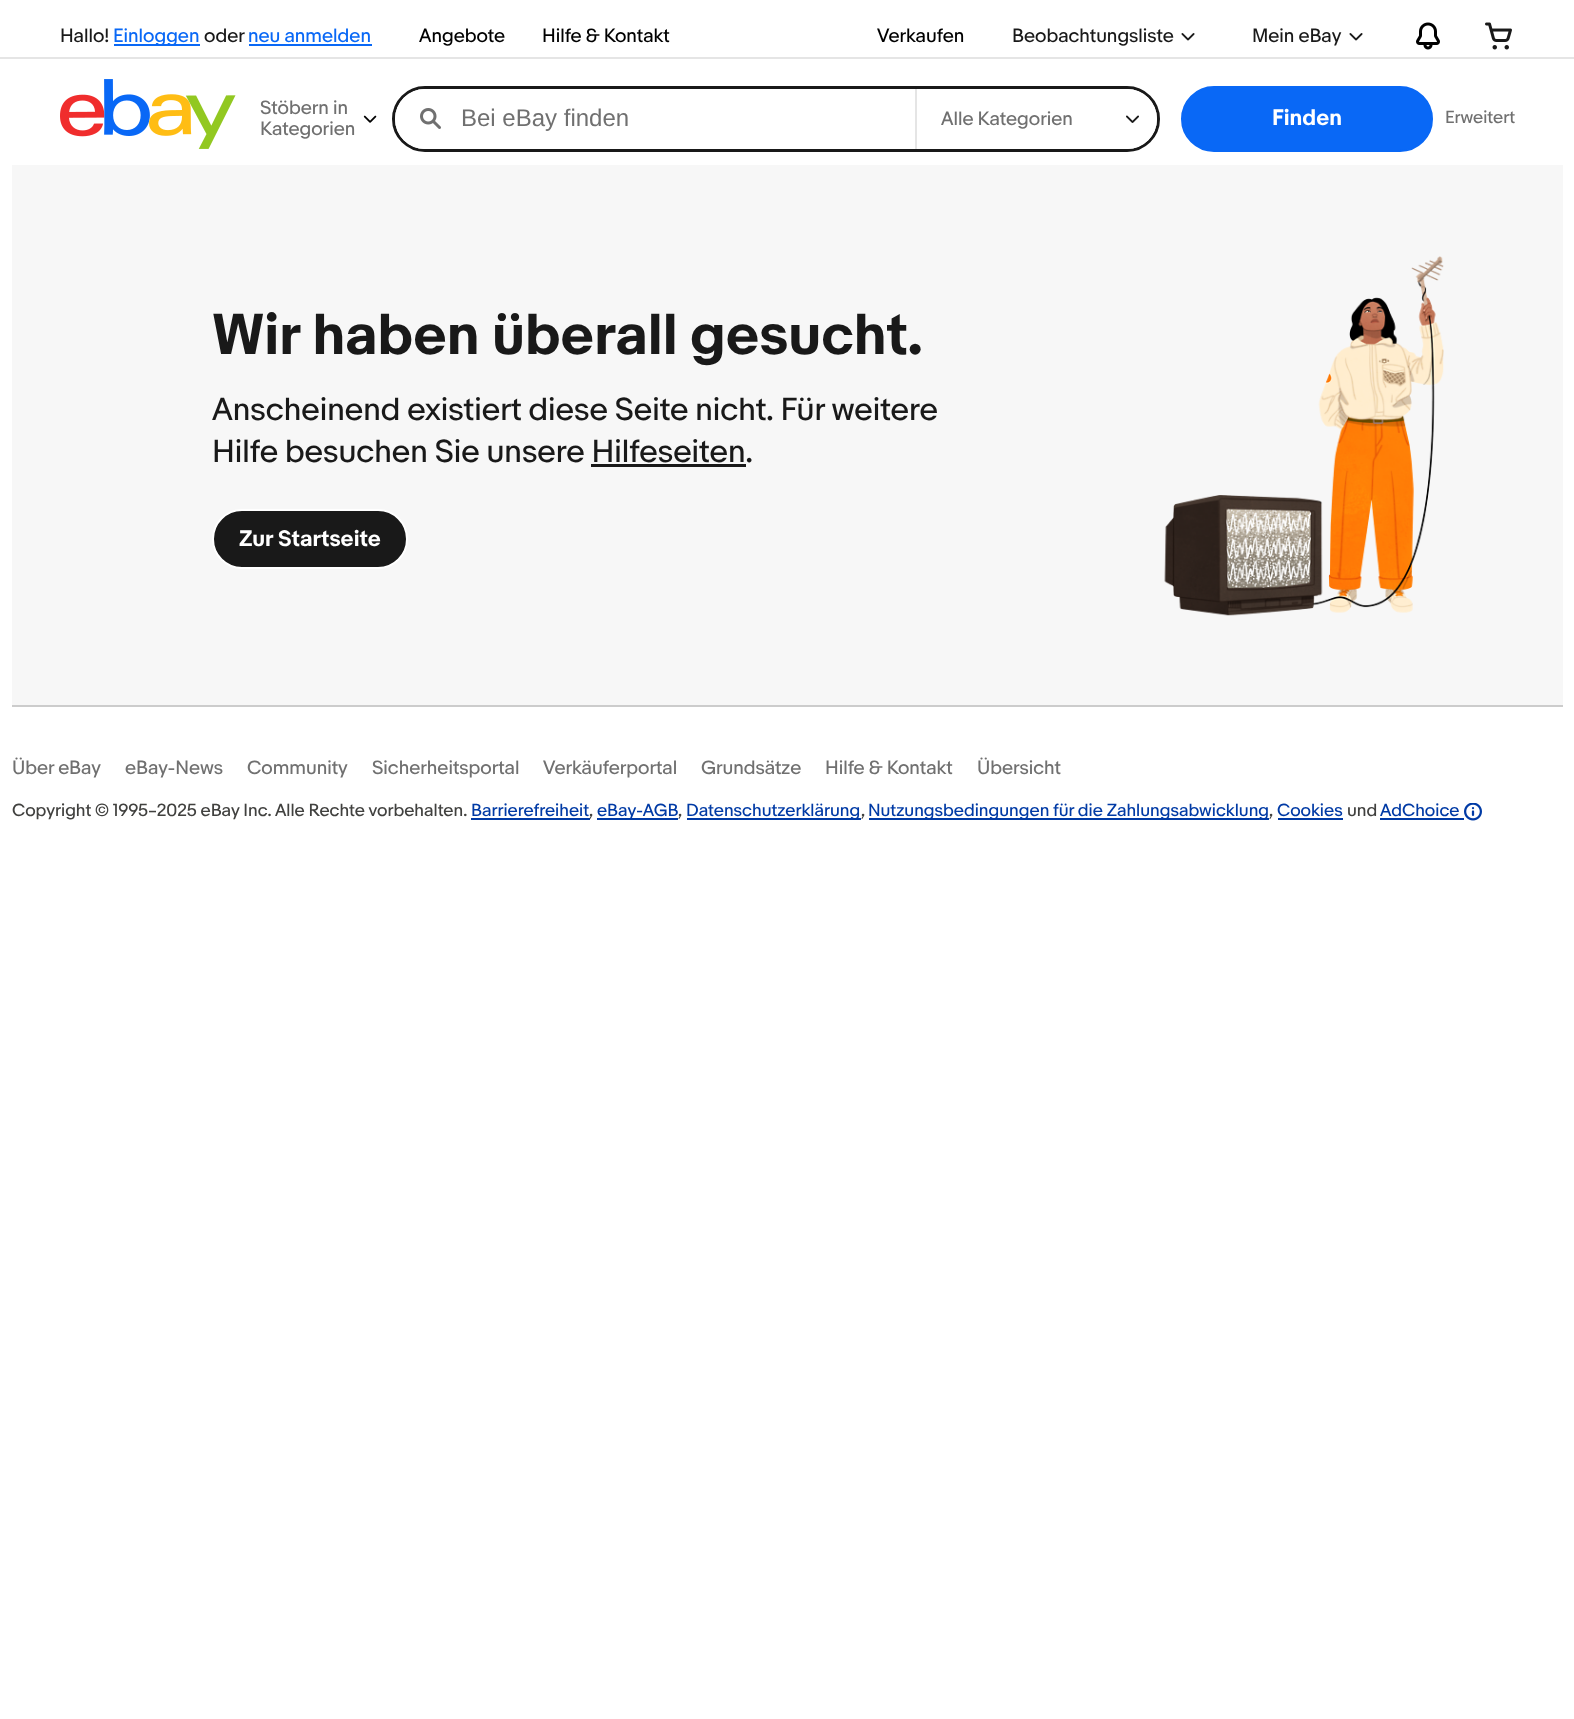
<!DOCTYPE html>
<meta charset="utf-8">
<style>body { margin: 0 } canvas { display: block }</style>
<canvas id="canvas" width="1574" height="1719"></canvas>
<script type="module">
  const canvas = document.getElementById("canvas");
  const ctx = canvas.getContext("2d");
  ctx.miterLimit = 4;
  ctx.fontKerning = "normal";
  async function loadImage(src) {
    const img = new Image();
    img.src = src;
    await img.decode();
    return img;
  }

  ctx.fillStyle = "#ffffff";
  ctx.fillRect(0, 0, 1574, 1719);
  ctx.font = "18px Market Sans";
  ctx.fillStyle = "#191919";
  ctx.fillText("Hallo!", 60, 42);
  ctx.fillStyle = "#0968f6";
  ctx.fillRect(114, 44, 86, 2);
  ctx.fillText("Einloggen", 113, 42);
  ctx.fillStyle = "#191919";
  ctx.fillText("oder", 204, 42);
  ctx.fillStyle = "#0968f6";
  ctx.fillText("neu anmelden", 248, 42);
  ctx.fillRect(249, 44, 123, 2);
  ctx.fillStyle = "#000000";
  ctx.fillText("Angebote", 419, 42);
  ctx.fillText("Hilfe & Kontakt", 542, 42);
  ctx.fillText("Verkaufen", 877, 42);
  ctx.fillStyle = "#191919";
  ctx.fillText("Beobachtungsliste", 1012, 42);
  ctx.drawImage(await loadImage("img1.png"), 1181, 33, 14, 8);
  ctx.fillText("Mein eBay", 1252, 42);
  ctx.drawImage(await loadImage("img1.png"), 1349, 33, 14, 8);
  ctx.drawImage(await loadImage("img2.png"), 1416, 22, 24, 28);
  ctx.drawImage(await loadImage("img3.png"), 1485, 22, 27, 28);
  ctx.drawImage(await loadImage("img4.png"), 60, 79, 176, 70);
  ctx.fillStyle = "#707070";
  ctx.fillText("Stöbern in", 260, 114);
  ctx.fillText("Kategorien", 260, 135);
  ctx.drawImage(await loadImage("img5.png"), 363, 115, 14, 8);
  ctx.beginPath();
  ctx.roundRect(393.5, 87.5, 765, 63, 31.5);
  ctx.strokeStyle = "#191919";
  ctx.lineWidth = 3;
  ctx.stroke();
  ctx.fillStyle = "#e5e5e5";
  ctx.fillRect(915, 89, 2, 60);
  ctx.fillStyle = "#ffffff";
  ctx.beginPath();
  ctx.roundRect(395, 89, 520, 60, [30, 0, 0, 30]);
  ctx.fill();
  ctx.drawImage(await loadImage("img6.png"), 420, 108, 21, 21);
  ctx.font = "24px Liberation Sans";
  ctx.fillStyle = "#707070";
  ctx.fillText("Bei eBay finden", 461, 126);
  ctx.fillStyle = "#ffffff";
  ctx.beginPath();
  ctx.roundRect(917, 89, 240, 60, [0, 30, 30, 0]);
  ctx.fill();
  ctx.drawImage(await loadImage("img7.png"), 1126, 115, 13, 8);
  ctx.font = "18px Market Sans";
  ctx.fillStyle = "#707070";
  ctx.fillText("Alle Kategorien", 941, 125);
  ctx.fillStyle = "#0968f6";
  ctx.beginPath();
  ctx.roundRect(1182, 87, 250, 64, 32);
  ctx.fill();
  ctx.strokeStyle = "#0968f6";
  ctx.lineWidth = 2;
  ctx.stroke();
  ctx.font = "bold 21px Market Sans";
  ctx.fillStyle = "#ffffff";
  ctx.fillText("Finden", 1272, 125);
  ctx.font = "16.5px Market Sans";
  ctx.fillStyle = "#707070";
  ctx.fillText("Erweitert", 1445, 123);
  ctx.fillStyle = "#e5e5e5";
  ctx.fillRect(0, 57, 1574, 2);
  ctx.fillStyle = "#f7f7f7";
  ctx.fillRect(12, 165, 1551, 540);
  ctx.font = "bold 54px Market Sans";
  ctx.fillStyle = "#191919";
  ctx.fillText("Wir haben überall gesucht.", 212, 354);
  ctx.font = "30px Market Sans";
  ctx.fillText("Anscheinend existiert diese Seite nicht. Für weitere", 212, 420);
  ctx.fillText("Hilfe besuchen Sie unsere Hilfeseiten.", 212, 462);
  ctx.fillRect(591, 464, 155, 3);
  ctx.beginPath();
  ctx.roundRect(213, 510, 194, 58, 29);
  ctx.fill();
  ctx.strokeStyle = "#ffffff";
  ctx.stroke();
  ctx.font = "bold 21px Market Sans";
  ctx.fillStyle = "#ffffff";
  ctx.fillText("Zur Startseite", 239, 546);
  ctx.drawImage(await loadImage("img8.png"), 1164, 256, 280, 360);
  ctx.fillStyle = "#cccccc";
  ctx.fillRect(12, 705, 1551, 2);
  ctx.font = "18px Market Sans";
  ctx.fillStyle = "#707070";
  ctx.fillText("Über eBay", 12, 774);
  ctx.fillText("eBay-News", 125, 774);
  ctx.fillText("Community", 247, 774);
  ctx.fillText("Sicherheitsportal", 372, 774);
  ctx.fillText("Verkäuferportal", 543, 774);
  ctx.fillText("Grundsätze", 701, 774);
  ctx.fillText("Hilfe & Kontakt", 825, 774);
  ctx.fillText("Übersicht", 977, 774);
  ctx.font = "16.5px Market Sans";
  ctx.fillStyle = "#41413f";
  ctx.fillText("Copyright © 1995–2025 eBay Inc. Alle Rechte vorbehalten.", 12, 816);
  ctx.fillStyle = "#003aa5";
  ctx.fillText("Barrierefreiheit", 471, 816);
  ctx.fillRect(471, 818, 119, 2);
  ctx.fillStyle = "#41413f";
  ctx.fillText(",", 589, 816);
  ctx.fillStyle = "#003aa5";
  ctx.fillRect(597, 818, 81, 2);
  ctx.fillText("eBay-AGB", 597, 816);
  ctx.fillStyle = "#41413f";
  ctx.fillText(",", 678, 816);
  ctx.fillStyle = "#003aa5";
  ctx.fillRect(687, 818, 174, 2);
  ctx.fillText("Datenschutzerklärung", 686, 816);
  ctx.fillStyle = "#41413f";
  ctx.fillText(",", 861, 816);
  ctx.fillStyle = "#003aa5";
  ctx.fillRect(869, 818, 400, 2);
  ctx.fillText("Nutzungsbedingungen für die Zahlungsabwicklung", 868, 816);
  ctx.fillStyle = "#41413f";
  ctx.fillText(",", 1269, 816);
  ctx.fillStyle = "#003aa5";
  ctx.fillText("Cookies", 1277, 816);
  ctx.fillRect(1278, 818, 65, 2);
  ctx.fillStyle = "#41413f";
  ctx.fillText("und", 1347, 816);
  ctx.fillStyle = "#003aa5";
  ctx.fillText("AdChoice", 1380, 816);
  ctx.fillRect(1380, 818, 84, 2);
  ctx.drawImage(await loadImage("img9.png"), 1464, 803, 18, 18);
</script>
